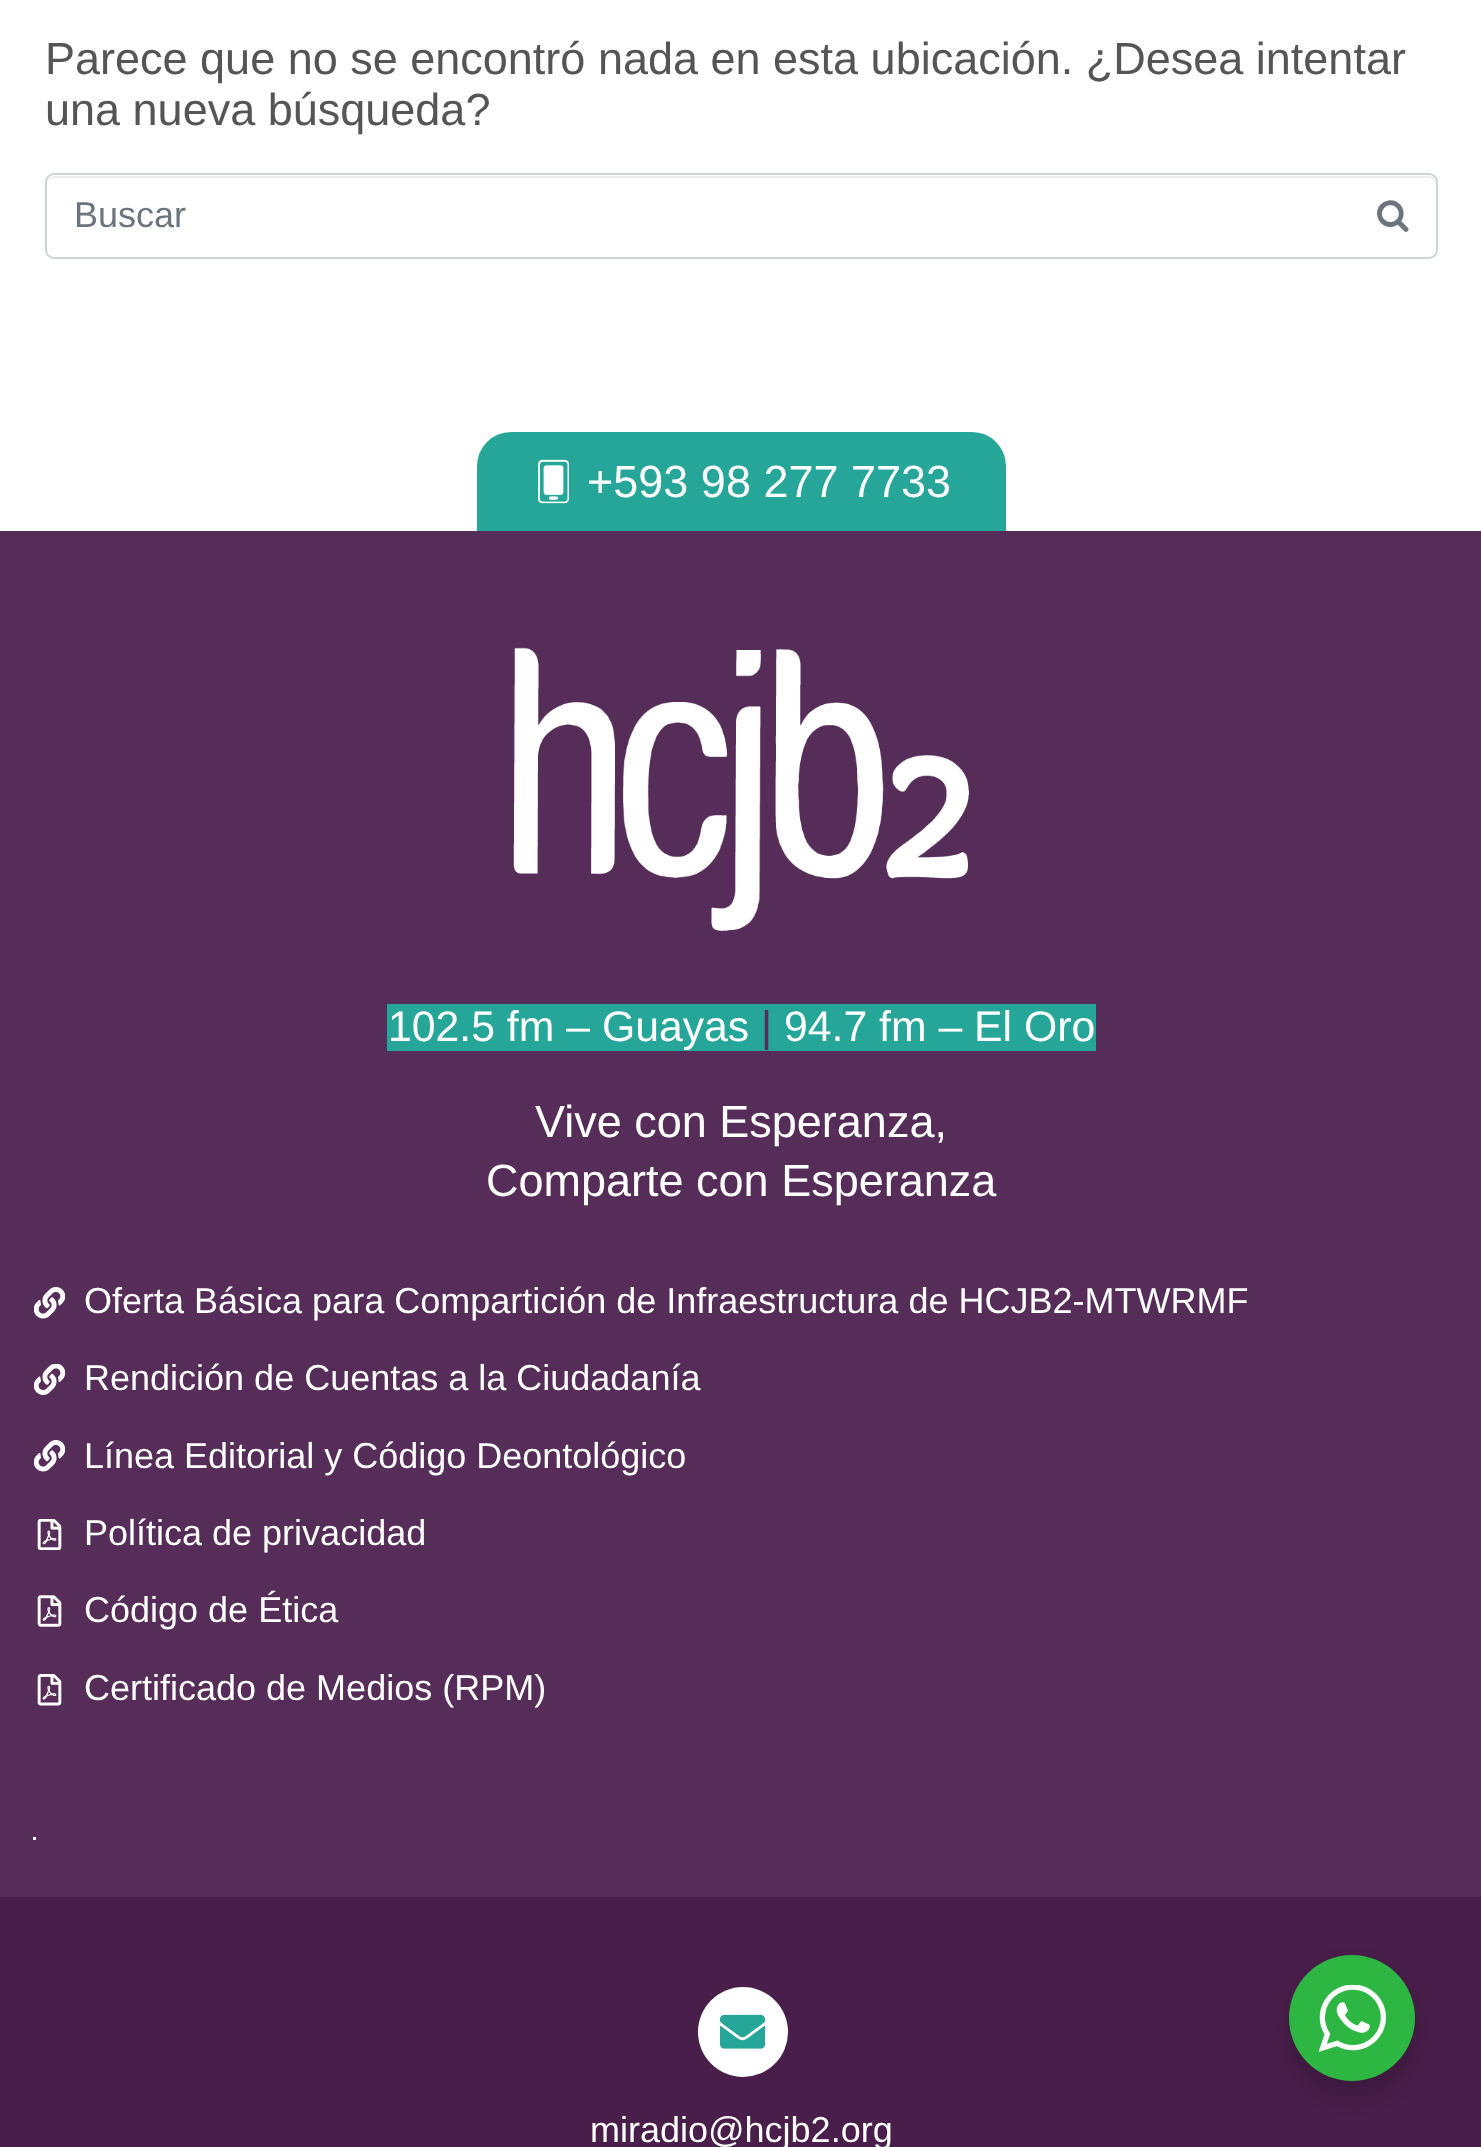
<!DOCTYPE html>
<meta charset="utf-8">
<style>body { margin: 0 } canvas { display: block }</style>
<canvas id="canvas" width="1481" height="2147"></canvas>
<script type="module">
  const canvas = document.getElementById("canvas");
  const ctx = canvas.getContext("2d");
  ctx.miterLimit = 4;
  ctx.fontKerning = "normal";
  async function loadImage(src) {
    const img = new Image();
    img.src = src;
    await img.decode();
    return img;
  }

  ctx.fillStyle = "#ffffff";
  ctx.fillRect(0, 0, 1481, 2147);
  ctx.font = "45px Liberation Sans";
  ctx.fillStyle = "#555555";
  ctx.fillText("Parece que no se encontró nada en esta ubicación. ¿Desea intentar", 45, 74);
  ctx.fillText("una nueva búsqueda?", 45, 125);
  ctx.fillStyle = "#ececec";
  ctx.beginPath();
  ctx.moveTo(54, 178);
  ctx.lineTo(1429, 178);
  ctx.bezierCurveTo(1432, 178, 1436, 181, 1436, 184);
  ctx.bezierCurveTo(1436, 180, 1434, 176, 1429, 176);
  ctx.lineTo(54, 176);
  ctx.bezierCurveTo(49, 176, 47, 180, 47, 184);
  ctx.bezierCurveTo(47, 181, 50, 178, 54, 178);
  ctx.closePath();
  ctx.fill();
  ctx.beginPath();
  ctx.roundRect(46, 174, 1391, 84, 8);
  ctx.strokeStyle = "#ced4da";
  ctx.lineWidth = 2;
  ctx.stroke();
  ctx.font = "36px Liberation Sans";
  ctx.fillStyle = "#6c757d";
  ctx.fillText("Buscar", 74, 227);
  ctx.drawImage(await loadImage("img1.png"), 1377, 200, 32, 32);
  ctx.fillStyle = "#26a599";
  ctx.beginPath();
  ctx.roundRect(477, 432, 529, 99, [34, 34, 0, 0]);
  ctx.fill();
  ctx.drawImage(await loadImage("img2.png"), 538, 459, 31, 45);
  ctx.font = "45px Liberation Sans";
  ctx.fillStyle = "#ffffff";
  ctx.fillText("+593 98 277 7733", 587, 497);
  ctx.fillStyle = "#562c59";
  ctx.fillRect(0, 531, 1481, 1366);
  ctx.drawImage(await loadImage("img3.png"), 513, 647, 456, 284);
  ctx.fillStyle = "#26a599";
  ctx.fillRect(387, 1004, 709, 47);
  ctx.font = "42.75px Liberation Sans";
  ctx.fillStyle = "#ffffff";
  ctx.fillText("102.5 fm – Guayas", 388, 1041);
  ctx.fillStyle = "#562c59";
  ctx.fillText("|", 761, 1041);
  ctx.fillStyle = "#ffffff";
  ctx.fillText("94.7 fm – El Oro", 784, 1041);
  ctx.font = "45px Liberation Sans";
  ctx.fillText("Vive con Esperanza,", 535, 1137);
  ctx.fillText("Comparte con Esperanza", 486, 1196);
  ctx.drawImage(await loadImage("img4.png"), 34, 1287, 31, 32);
  ctx.font = "36px Liberation Sans";
  ctx.fillText("Oferta Básica para Compartición de Infraestructura de HCJB2-MTWRMF", 84, 1313);
  ctx.drawImage(await loadImage("img5.png"), 34, 1364, 31, 31);
  ctx.fillText("Rendición de Cuentas a la Ciudadanía", 84, 1390);
  ctx.drawImage(await loadImage("img4.png"), 34, 1440, 31, 32);
  ctx.fillText("Línea Editorial y Código Deontológico", 84, 1468);
  ctx.drawImage(await loadImage("img6.png"), 37, 1519, 25, 31);
  ctx.fillText("Política de privacidad", 84, 1545);
  ctx.drawImage(await loadImage("img7.png"), 37, 1595, 25, 32);
  ctx.fillText("Código de Ética", 84, 1622);
  ctx.drawImage(await loadImage("img8.png"), 37, 1674, 25, 32);
  ctx.fillText("Certificado de Medios (RPM)", 84, 1700);
  ctx.fillRect(33, 1837, 3, 3);
  ctx.fillStyle = "#491e4a";
  ctx.fillRect(0, 1897, 1481, 250);
  ctx.fillStyle = "#ffffff";
  ctx.beginPath();
  ctx.arc(743, 2032, 45, 0, Math.PI * 2);
  ctx.fill();
  ctx.drawImage(await loadImage("img9.png"), 720, 2014, 45, 35);
  ctx.fillText("miradio@hcjb2.org", 590, 2142);
  ctx.fillStyle = "rgba(0, 0, 0, 0.14)";
  ctx.filter = "blur(9px)";
  ctx.beginPath();
  ctx.roundRect(1285, 1964, 135, 135, 67.5);
  ctx.fill();
  ctx.filter = "none";
  ctx.fillStyle = "#2db742";
  ctx.beginPath();
  ctx.arc(1352, 2018, 63, 0, Math.PI * 2);
  ctx.fill();
  ctx.drawImage(await loadImage("img10.png"), 1319, 1985, 67, 67);
</script>
